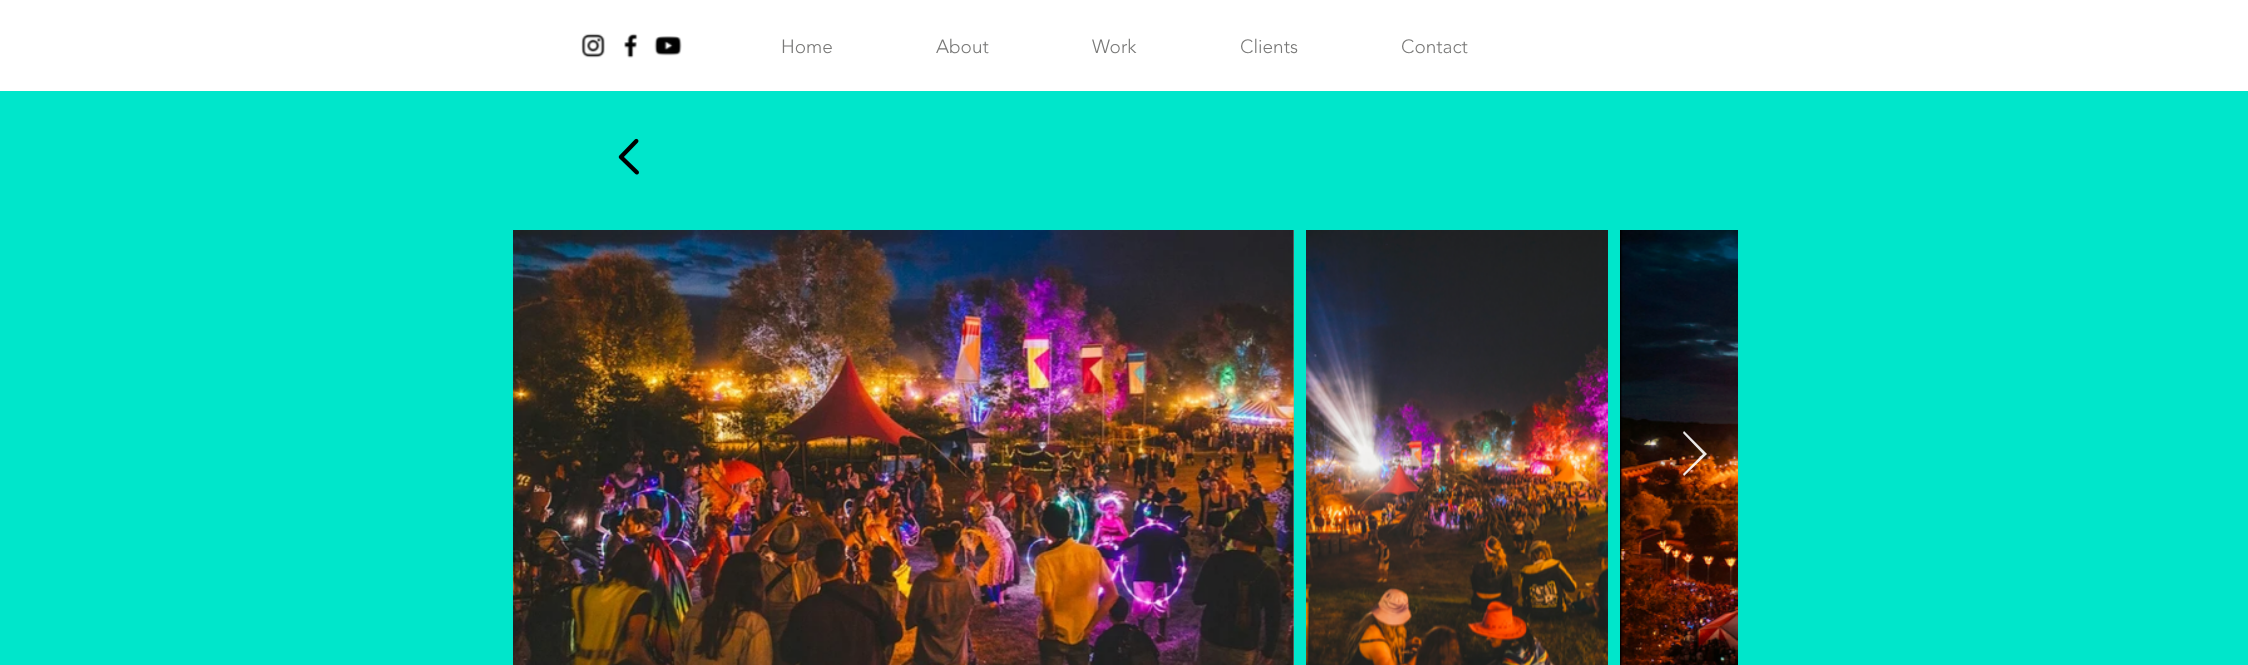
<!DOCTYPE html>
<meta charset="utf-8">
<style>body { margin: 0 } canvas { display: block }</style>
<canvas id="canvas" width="2248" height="665"></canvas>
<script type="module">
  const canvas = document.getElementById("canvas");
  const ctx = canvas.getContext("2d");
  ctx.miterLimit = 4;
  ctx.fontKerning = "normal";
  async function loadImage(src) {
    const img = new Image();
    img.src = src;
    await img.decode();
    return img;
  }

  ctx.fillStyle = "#00e6cb";
  ctx.fillRect(0, 0, 2248, 665);
  ctx.fillStyle = "#ffffff";
  ctx.fillRect(0, 0, 2248, 91);
  ctx.drawImage(await loadImage("img1.png"), 581, 33, 24, 25);
  ctx.drawImage(await loadImage("img2.png"), 624, 33, 14, 25);
  ctx.drawImage(await loadImage("img3.png"), 654, 36, 28, 20);
  ctx.font = "300 19px 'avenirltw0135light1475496'";
  ctx.fillStyle = "#787877";
  ctx.fillText("Home", 781, 53);
  ctx.fillText("About", 936, 53);
  ctx.fillText("Work", 1092, 53);
  ctx.fillText("Clients", 1240, 53);
  ctx.fillText("Contact", 1401, 53);
  ctx.drawImage(await loadImage("img4.png"), 618, 138, 21, 37);
  ctx.fillStyle = "#a0a09f";
  ctx.fillRect(1293, 230, 1, 435);
  ctx.drawImage(await loadImage("img5.png"), 513, 230, 781, 435);
  ctx.drawImage(await loadImage("img6.png"), 1306, 230, 302, 435);
  ctx.drawImage(await loadImage("img7.png"), 1620, 230, 118, 435);
  ctx.fillStyle = "rgba(255, 255, 255, 0.9)";
  ctx.beginPath();
  ctx.moveTo(1683, 433);
  ctx.lineTo(1684, 431);
  ctx.lineTo(1707, 454);
  ctx.lineTo(1684, 476);
  ctx.lineTo(1683, 474);
  ctx.lineTo(1703, 454);
  ctx.closePath();
  ctx.fill();
</script>
